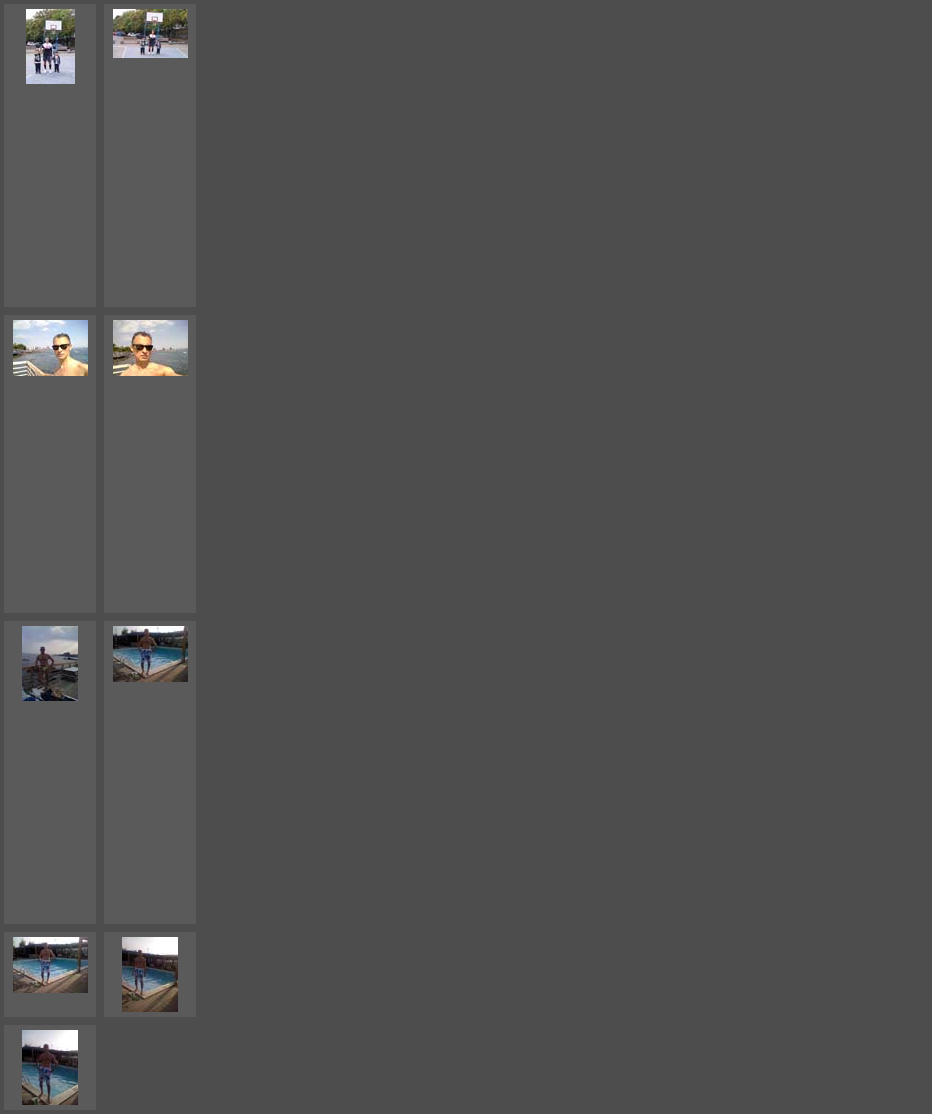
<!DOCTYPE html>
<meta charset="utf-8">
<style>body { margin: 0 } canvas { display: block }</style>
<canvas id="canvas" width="932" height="1114"></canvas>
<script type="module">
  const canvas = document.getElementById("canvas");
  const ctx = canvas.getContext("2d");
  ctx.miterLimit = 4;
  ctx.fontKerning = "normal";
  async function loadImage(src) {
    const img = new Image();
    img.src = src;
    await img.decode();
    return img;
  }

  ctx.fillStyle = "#4e4d4d";
  ctx.fillRect(0, 0, 932, 1114);
  ctx.fillStyle = "#5b5a5a";
  ctx.fillRect(4, 4, 92, 303);
  ctx.drawImage(await loadImage("img1.png"), 26, 9, 49, 75);
  ctx.fillRect(104, 4, 92, 303);
  ctx.drawImage(await loadImage("img2.png"), 113, 9, 75, 49);
  ctx.fillRect(4, 315, 92, 298);
  ctx.drawImage(await loadImage("img3.png"), 13, 320, 75, 56);
  ctx.fillRect(104, 315, 92, 298);
  ctx.drawImage(await loadImage("img4.png"), 113, 320, 75, 56);
  ctx.fillRect(4, 621, 92, 303);
  ctx.drawImage(await loadImage("img5.png"), 22, 626, 56, 75);
  ctx.fillRect(104, 621, 92, 303);
  ctx.drawImage(await loadImage("img6.png"), 113, 626, 75, 56);
  ctx.fillRect(4, 932, 92, 85);
  ctx.drawImage(await loadImage("img7.png"), 13, 937, 75, 56);
  ctx.fillRect(104, 932, 92, 85);
  ctx.drawImage(await loadImage("img8.png"), 122, 937, 56, 75);
  ctx.fillRect(4, 1025, 92, 85);
  ctx.drawImage(await loadImage("img9.png"), 22, 1030, 56, 75);
</script>
